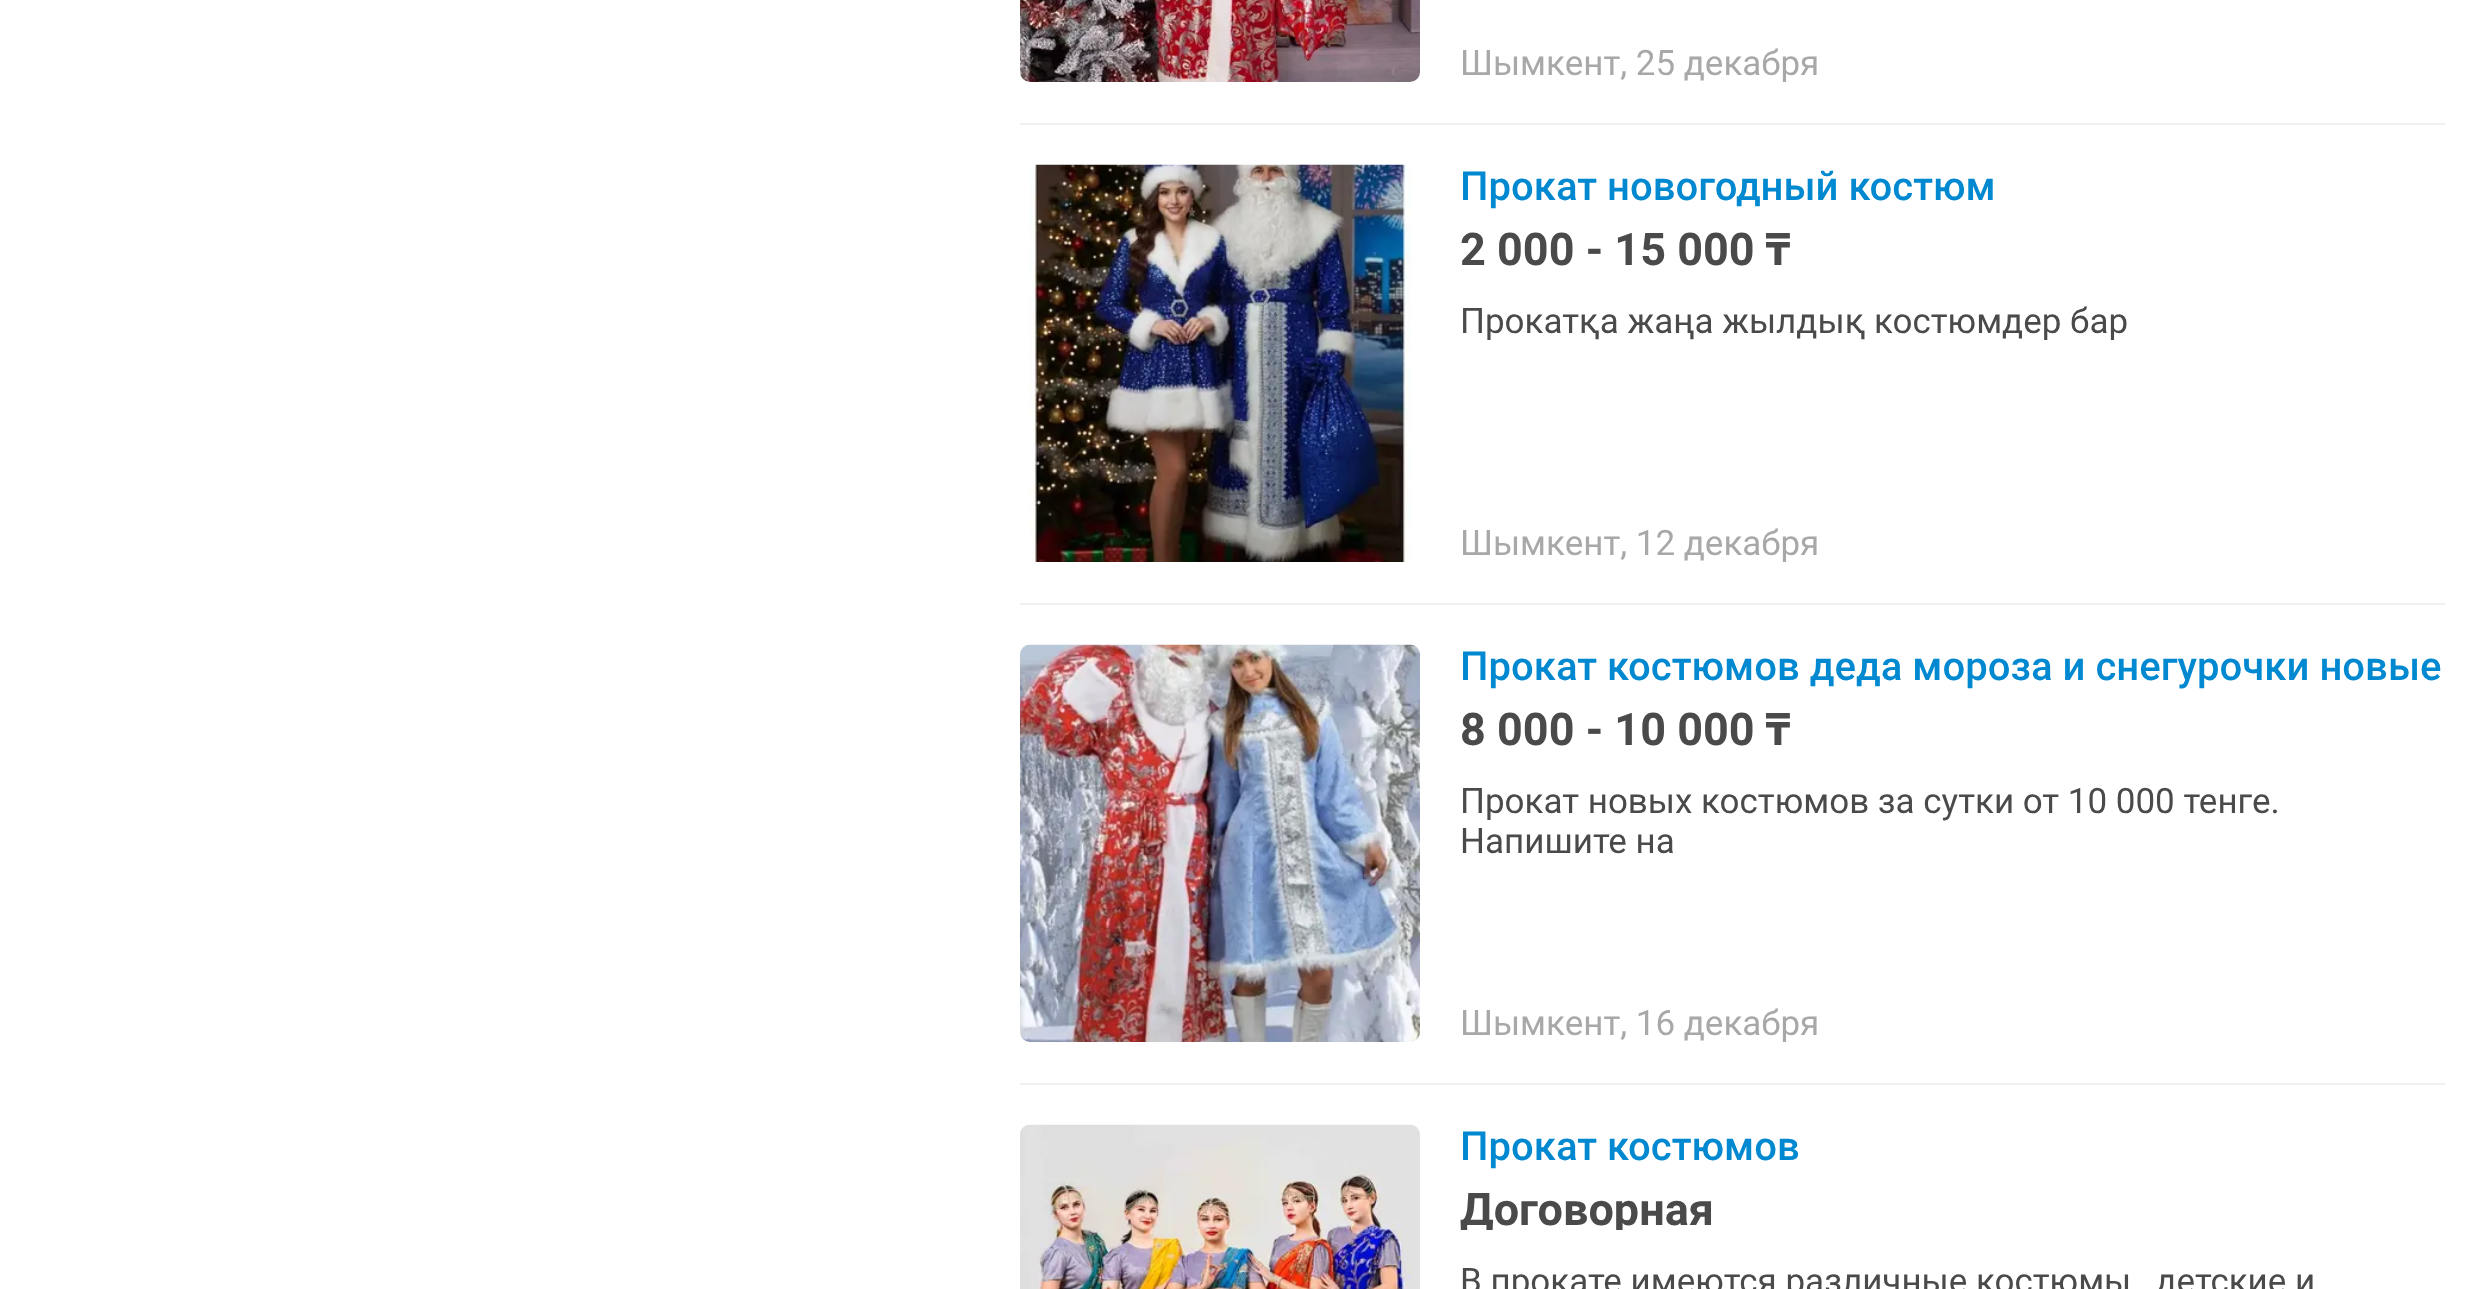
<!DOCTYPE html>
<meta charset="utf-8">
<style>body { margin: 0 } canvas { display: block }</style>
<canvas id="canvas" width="2484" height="1289"></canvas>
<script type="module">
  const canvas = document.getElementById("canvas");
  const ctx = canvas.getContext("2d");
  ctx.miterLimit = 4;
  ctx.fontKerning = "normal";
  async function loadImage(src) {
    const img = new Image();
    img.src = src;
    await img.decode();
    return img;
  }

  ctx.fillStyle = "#ffffff";
  ctx.fillRect(0, 0, 2484, 1289);
  ctx.fillStyle = "#f0f0f0";
  ctx.fillRect(1020, 123, 1425, 2);
  ctx.drawImage(await loadImage("img1.png"), 1020, 0, 400, 82);
  ctx.font = "35px Roboto";
  ctx.fillStyle = "#a8a8a8";
  ctx.fillText("Шымкент, 25 декабря", 1460, 75);
  ctx.fillStyle = "#f0f0f0";
  ctx.fillRect(1020, 603, 1425, 2);
  ctx.drawImage(await loadImage("img2.png"), 1029, 164, 383, 398);
  ctx.font = "500 40px Roboto";
  ctx.fillStyle = "#0089d0";
  ctx.fillText("Прокат новогодный костюм", 1460, 200);
  ctx.font = "bold 45px Roboto";
  ctx.fillStyle = "#4a4a4a";
  ctx.fillText("2 000 - 15 000", 1460, 265);
  ctx.font = "bold 45px Noto Sans";
  ctx.fillText("₸", 1765, 265);
  ctx.save();
  ctx.beginPath();
  ctx.rect(1460, 300, 668, 40);
  ctx.clip();
  ctx.font = "35px Roboto";
  ctx.fillText("Прокатқа жаңа жылдық костюмдер бар", 1460, 333);
  ctx.restore();
  ctx.font = "35px Roboto";
  ctx.fillStyle = "#a8a8a8";
  ctx.fillText("Шымкент, 12 декабря", 1460, 555);
  ctx.fillStyle = "#f0f0f0";
  ctx.fillRect(1020, 1083, 1425, 2);
  ctx.drawImage(await loadImage("img3.png"), 1020, 644, 400, 398);
  ctx.font = "500 40px Roboto";
  ctx.fillStyle = "#0089d0";
  ctx.fillText("Прокат костюмов деда мороза и снегурочки новые", 1460, 680);
  ctx.font = "bold 45px Roboto";
  ctx.fillStyle = "#4a4a4a";
  ctx.fillText("8 000 - 10 000", 1460, 745);
  ctx.font = "bold 45px Noto Sans";
  ctx.fillText("₸", 1765, 745);
  ctx.font = "35px Roboto";
  ctx.fillText("Прокат новых костюмов за сутки от 10 000 тенге.", 1460, 813);
  ctx.fillText("Напишите на", 1460, 853);
  ctx.fillStyle = "#a8a8a8";
  ctx.fillText("Шымкент, 16 декабря", 1460, 1035);
  ctx.drawImage(await loadImage("img4.png"), 1020, 1124, 400, 165);
  ctx.font = "500 40px Roboto";
  ctx.fillStyle = "#0089d0";
  ctx.fillText("Прокат костюмов", 1460, 1160);
  ctx.save();
  ctx.beginPath();
  ctx.rect(1460, 1190, 985, 40);
  ctx.clip();
  ctx.font = "bold 45px Roboto";
  ctx.fillStyle = "#4a4a4a";
  ctx.fillText("Договорная", 1460, 1225);
  ctx.restore();
  ctx.font = "35px Roboto";
  ctx.fillStyle = "#4a4a4a";
  ctx.fillText("В прокате имеются различные костюмы , детские и", 1460, 1293);
</script>
